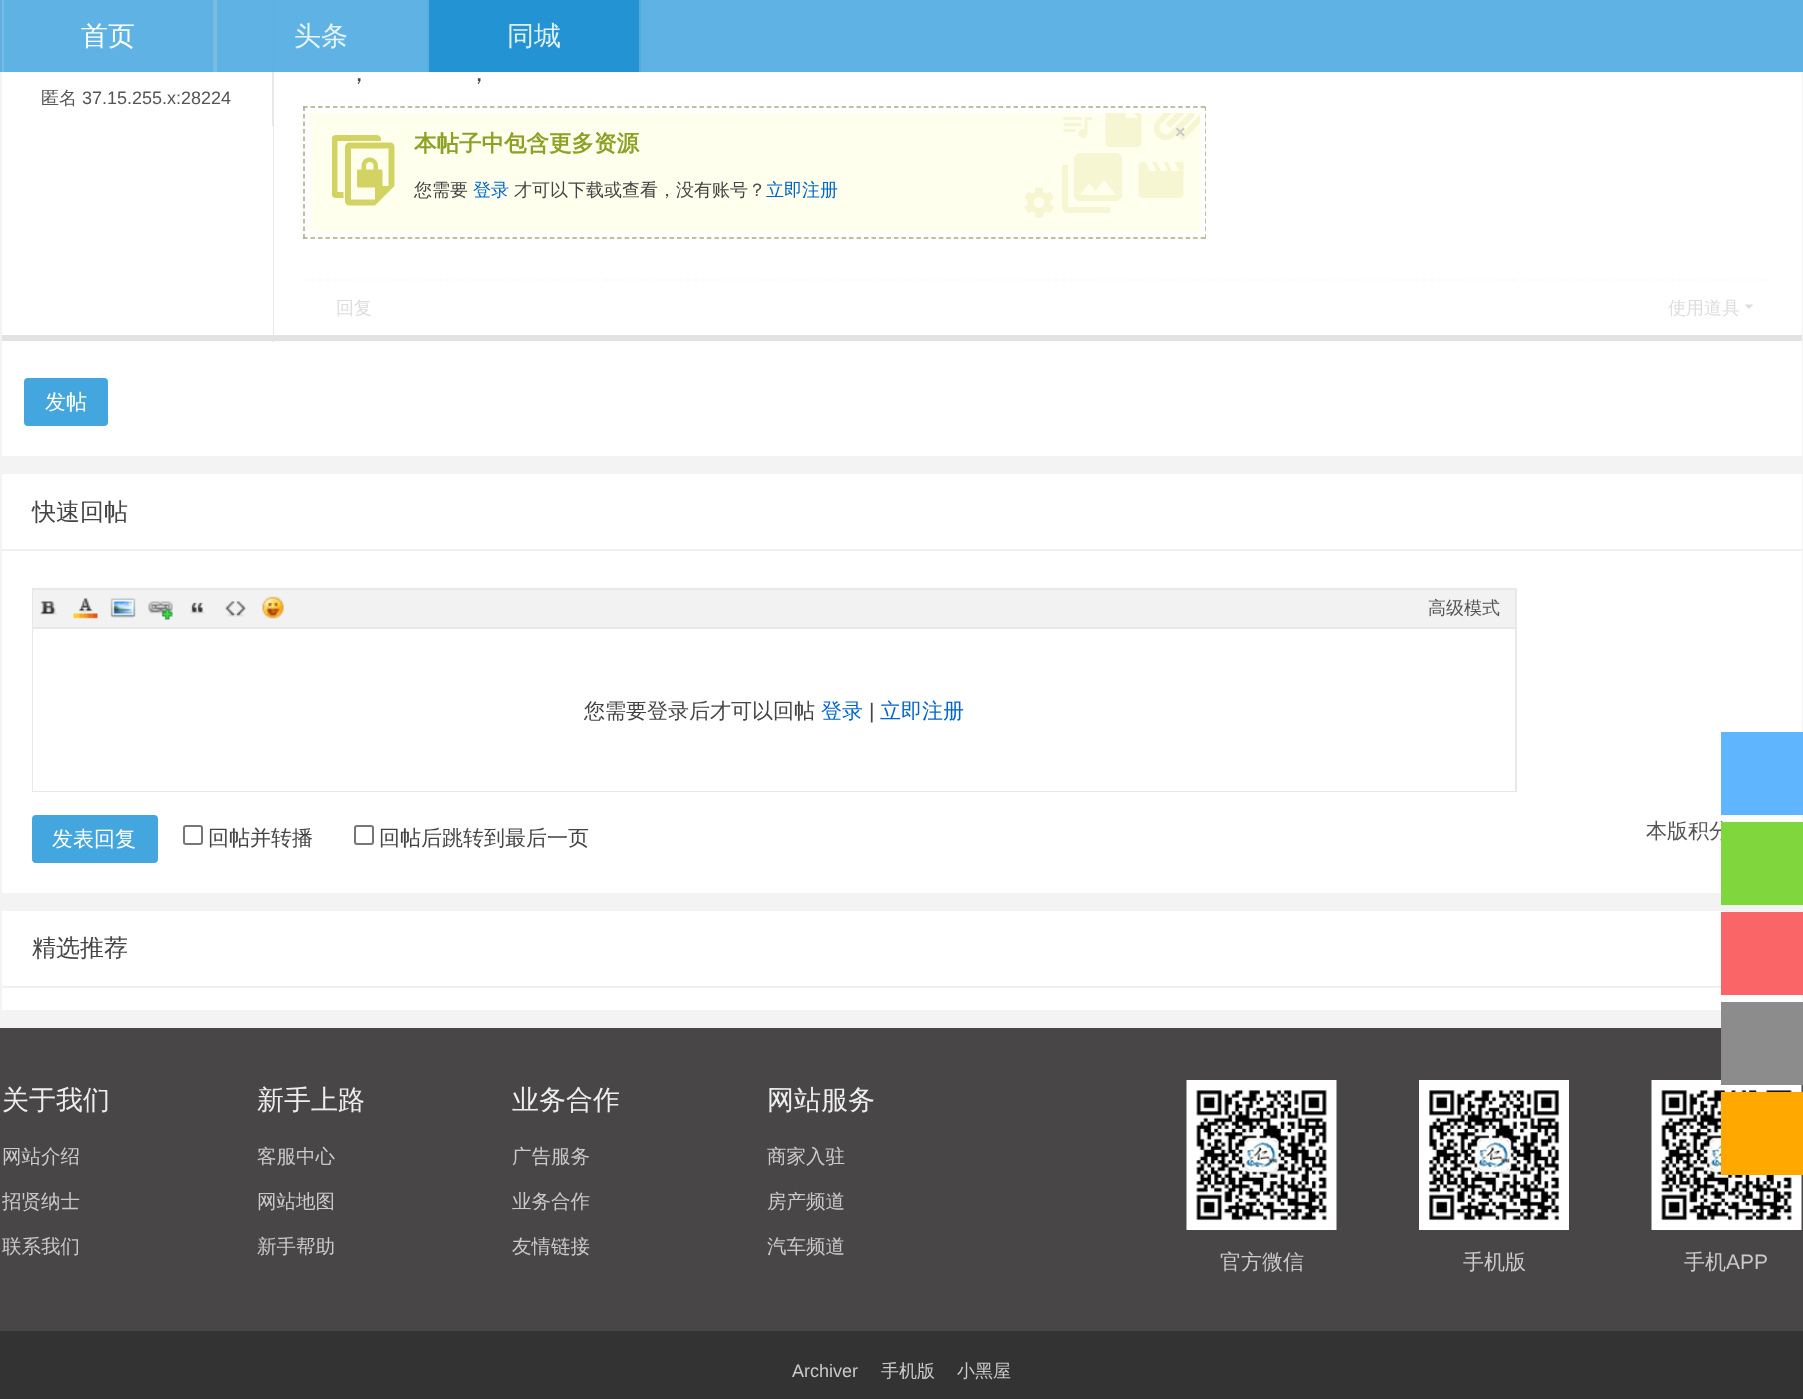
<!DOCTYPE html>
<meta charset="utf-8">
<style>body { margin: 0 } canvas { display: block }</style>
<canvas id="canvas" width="1803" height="1399"></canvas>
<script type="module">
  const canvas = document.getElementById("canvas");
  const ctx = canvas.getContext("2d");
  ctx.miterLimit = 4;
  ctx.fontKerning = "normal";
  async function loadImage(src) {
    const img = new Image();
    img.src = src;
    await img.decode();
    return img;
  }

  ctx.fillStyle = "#f3f3f3";
  ctx.fillRect(0, 0, 1803, 1399);
  ctx.fillStyle = "#ffffff";
  ctx.fillRect(2, 0, 1800, 1010);
  ctx.fillStyle = "#e8e8e8";
  ctx.fillRect(272, 69, 1, 57);
  ctx.fillRect(272, 335, 2, 7);
  ctx.fillRect(273, 0, 1, 336);
  ctx.fillStyle = "rgba(67, 166, 223, 0.85)";
  ctx.fillRect(0, 0, 1803, 72);
  ctx.fillStyle = "#76bce3";
  ctx.fillRect(213, 0, 2, 72);
  ctx.fillStyle = "#7abce2";
  ctx.fillRect(2, 0, 2, 72);
  ctx.font = "500 27px WenQuanYi Zen Hei";
  ctx.fillStyle = "#ffffff";
  ctx.fillText("首页", 81, 45);
  ctx.fillStyle = "rgba(94, 176, 222, 0.85)";
  ctx.fillRect(426, 0, 2, 72);
  ctx.fillStyle = "#7abce2";
  ctx.fillRect(215, 0, 2, 72);
  ctx.fillStyle = "#e6f3fa";
  ctx.fillText("头条", 294, 45);
  ctx.fillStyle = "rgba(35, 146, 210, 0.85)";
  ctx.fillRect(428, 0, 213, 72);
  ctx.fillStyle = "rgba(94, 176, 222, 0.85)";
  ctx.fillRect(639, 0, 2, 72);
  ctx.fillStyle = "rgba(98, 176, 221, 0.85)";
  ctx.fillRect(428, 0, 2, 72);
  ctx.fillStyle = "rgba(35, 146, 210, 0.85)";
  ctx.fillRect(429, 0, 210, 72);
  ctx.fillStyle = "#deeff8";
  ctx.fillText("同城", 507, 45);
  ctx.font = "500 18px WenQuanYi Zen Hei";
  ctx.fillStyle = "#555555";
  ctx.fillText("匿名", 41, 104);
  ctx.font = "18px Liberation Sans";
  ctx.fillText("37.15.255.x:28224", 82, 104);
  ctx.wordSpacing = "-1px";
  ctx.font = "500 24px WenQuanYi Zen Hei";
  ctx.fillStyle = "#444444";
  ctx.fillText("，", 347, 81);
  ctx.fillText("，", 467, 81);
  ctx.fillStyle = "#ffffee";
  ctx.fillRect(303, 107, 903, 132);
  ctx.drawImage(await loadImage("img1.png"), 1024, 113, 176, 105);
  ctx.beginPath();
  ctx.moveTo(303, 107);
  ctx.lineTo(1206, 107);
  ctx.strokeStyle = "#aaaa92";
  ctx.lineWidth = 1.5;
  ctx.setLineDash([4.5, 2.98]);
  ctx.stroke();
  ctx.beginPath();
  ctx.moveTo(1205, 106.5);
  ctx.lineTo(1205, 238.5);
  ctx.setLineDash([4.5, 3]);
  ctx.stroke();
  ctx.beginPath();
  ctx.moveTo(303, 238);
  ctx.lineTo(1206, 238);
  ctx.setLineDash([4.5, 2.98]);
  ctx.stroke();
  ctx.beginPath();
  ctx.moveTo(304, 106.5);
  ctx.lineTo(304, 238.5);
  ctx.setLineDash([4.5, 3]);
  ctx.stroke();
  ctx.drawImage(await loadImage("img2.png"), 332, 135, 63, 71);
  ctx.strokeStyle = "#ffffff";
  ctx.lineWidth = 5;
  ctx.setLineDash([]);
  ctx.strokeRect(307.5, 110.5, 895, 124);
  ctx.wordSpacing = "0px";
  ctx.font = "bold 22.5px WenQuanYi Zen Hei";
  ctx.fillStyle = "#8ca226";
  ctx.fillText("本帖子中包含更多资源", 414, 151);
  ctx.font = "500 18px WenQuanYi Zen Hei";
  ctx.fillStyle = "#444444";
  ctx.fillText("您需要", 414, 196);
  ctx.fillStyle = "#0066cc";
  ctx.fillText("登录", 473, 196);
  ctx.fillStyle = "#444444";
  ctx.fillText("才可以下载或查看，没有账号？", 514, 196);
  ctx.fillStyle = "#0066cc";
  ctx.fillText("立即注册", 766, 196);
  ctx.font = "bold 18px Liberation Sans";
  ctx.fillStyle = "#cacaca";
  ctx.fillText("×", 1175, 138);
  ctx.beginPath();
  ctx.moveTo(303, 280);
  ctx.lineTo(1771.5, 280);
  ctx.strokeStyle = "#fafafa";
  ctx.lineWidth = 1.5;
  ctx.setLineDash([4.5, 3.01]);
  ctx.stroke();
  ctx.font = "500 18px WenQuanYi Zen Hei";
  ctx.fillStyle = "#dddddd";
  ctx.fillText("回复", 336, 314);
  ctx.fillText("使用道具", 1668, 314);
  ctx.beginPath();
  ctx.moveTo(1744.5, 304.5);
  ctx.lineTo(1753.5, 304.5);
  ctx.lineTo(1749, 309);
  ctx.closePath();
  ctx.fill();
  ctx.fillStyle = "#e2e2e2";
  ctx.fillRect(2, 335, 1800, 6);
  ctx.fillStyle = "#43a6df";
  ctx.beginPath();
  ctx.roundRect(25, 379, 82, 46, 3);
  ctx.fill();
  ctx.strokeStyle = "#43a6df";
  ctx.lineWidth = 2;
  ctx.setLineDash([]);
  ctx.stroke();
  ctx.font = "500 21px WenQuanYi Zen Hei";
  ctx.fillStyle = "#ffffff";
  ctx.fillText("发帖", 45, 409);
  ctx.fillStyle = "#f3f3f3";
  ctx.fillRect(2, 456, 1800, 18);
  ctx.fillStyle = "#f0f0f0";
  ctx.fillRect(2, 549, 1800, 2);
  ctx.font = "500 24px WenQuanYi Zen Hei";
  ctx.fillStyle = "#444444";
  ctx.fillText("快速回帖", 32, 520);
  ctx.strokeStyle = "#e8e8e8";
  ctx.strokeRect(33, 589, 1483, 202);
  ctx.fillStyle = "#f2f2f2";
  ctx.fillRect(33, 590, 1482, 37);
  ctx.fillStyle = "#e8e8e8";
  ctx.fillRect(33, 627, 1482, 2);
  ctx.drawImage(await loadImage("img3.png"), 40, 601, 17, 14);
  ctx.drawImage(await loadImage("img4.png"), 73, 598, 25, 21);
  ctx.drawImage(await loadImage("img5.png"), 110, 598, 26, 20);
  ctx.drawImage(await loadImage("img6.png"), 148, 601, 26, 19);
  ctx.drawImage(await loadImage("img7.png"), 190, 602, 15, 12);
  ctx.drawImage(await loadImage("img8.png"), 224, 601, 23, 16);
  ctx.drawImage(await loadImage("img9.png"), 261, 596, 23, 23);
  ctx.font = "500 18px WenQuanYi Zen Hei";
  ctx.fillStyle = "#555555";
  ctx.fillText("高级模式", 1428, 614);
  ctx.fillStyle = "#ffffff";
  ctx.fillRect(33, 629, 1482, 162);
  ctx.font = "500 21px WenQuanYi Zen Hei";
  ctx.fillStyle = "#444444";
  ctx.fillText("您需要登录后才可以回帖", 584, 718);
  ctx.fillStyle = "#0066cc";
  ctx.fillText("登录", 821, 718);
  ctx.font = "21px Liberation Sans";
  ctx.fillStyle = "#444444";
  ctx.fillText("|", 869, 718);
  ctx.font = "500 21px WenQuanYi Zen Hei";
  ctx.fillStyle = "#0066cc";
  ctx.fillText("立即注册", 880, 718);
  ctx.fillStyle = "#43a6df";
  ctx.beginPath();
  ctx.roundRect(33, 816, 124, 46, 3);
  ctx.fill();
  ctx.strokeStyle = "#43a6df";
  ctx.stroke();
  ctx.fillStyle = "#ffffff";
  ctx.fillText("发表回复", 52, 846);
  ctx.beginPath();
  ctx.roundRect(184, 826, 18, 18, 2);
  ctx.strokeStyle = "#767676";
  ctx.stroke();
  ctx.fillStyle = "#444444";
  ctx.fillText("回帖并转播", 208, 845);
  ctx.beginPath();
  ctx.roundRect(355, 826, 18, 18, 2);
  ctx.stroke();
  ctx.fillText("回帖后跳转到最后一页", 379, 845);
  ctx.fillStyle = "#555555";
  ctx.fillText("本版积分", 1646, 838);
  ctx.fillStyle = "#f3f3f3";
  ctx.fillRect(2, 893, 1800, 18);
  ctx.fillStyle = "#f0f0f0";
  ctx.fillRect(2, 986, 1719, 2);
  ctx.font = "500 24px WenQuanYi Zen Hei";
  ctx.fillStyle = "#444444";
  ctx.fillText("精选推荐", 32, 956);
  ctx.fillStyle = "#5fb6ff";
  ctx.fillRect(1721, 732, 82, 83);
  ctx.fillStyle = "#80d63d";
  ctx.fillRect(1721, 822, 82, 83);
  ctx.fillStyle = "#fa6567";
  ctx.fillRect(1721, 912, 82, 83);
  ctx.fillStyle = "#484647";
  ctx.fillRect(0, 1028, 1803, 303);
  ctx.drawImage(await loadImage("img10.png"), 1651, 1080, 151, 150);
  ctx.fillStyle = "#8c8c8c";
  ctx.fillRect(1721, 1002, 82, 83);
  ctx.fillStyle = "#ffa800";
  ctx.fillRect(1721, 1092, 82, 83);
  ctx.font = "500 27px WenQuanYi Zen Hei";
  ctx.fillStyle = "#eeeeee";
  ctx.fillText("关于我们", 2, 1109);
  ctx.font = "500 19.5px WenQuanYi Zen Hei";
  ctx.fillStyle = "#cacaca";
  ctx.fillText("网站介绍", 2, 1163);
  ctx.fillText("招贤纳士", 2, 1208);
  ctx.fillText("联系我们", 2, 1253);
  ctx.font = "500 27px WenQuanYi Zen Hei";
  ctx.fillStyle = "#eeeeee";
  ctx.fillText("新手上路", 257, 1109);
  ctx.font = "500 19.5px WenQuanYi Zen Hei";
  ctx.fillStyle = "#cacaca";
  ctx.fillText("客服中心", 257, 1163);
  ctx.fillText("网站地图", 257, 1208);
  ctx.fillText("新手帮助", 257, 1253);
  ctx.font = "500 27px WenQuanYi Zen Hei";
  ctx.fillStyle = "#eeeeee";
  ctx.fillText("业务合作", 512, 1109);
  ctx.font = "500 19.5px WenQuanYi Zen Hei";
  ctx.fillStyle = "#cacaca";
  ctx.fillText("广告服务", 512, 1163);
  ctx.fillText("业务合作", 512, 1208);
  ctx.fillText("友情链接", 512, 1253);
  ctx.font = "500 27px WenQuanYi Zen Hei";
  ctx.fillStyle = "#eeeeee";
  ctx.fillText("网站服务", 767, 1109);
  ctx.font = "500 19.5px WenQuanYi Zen Hei";
  ctx.fillStyle = "#cacaca";
  ctx.fillText("商家入驻", 767, 1163);
  ctx.fillText("房产频道", 767, 1208);
  ctx.fillText("汽车频道", 767, 1253);
  ctx.drawImage(await loadImage("img10.png"), 1186, 1080, 151, 150);
  ctx.font = "500 21px WenQuanYi Zen Hei";
  ctx.fillText("官方微信", 1220, 1269);
  ctx.drawImage(await loadImage("img11.png"), 1419, 1080, 150, 150);
  ctx.fillText("手机版", 1463, 1269);
  ctx.fillText("手机", 1684, 1269);
  ctx.font = "21px Liberation Sans";
  ctx.fillText("APP", 1726, 1269);
  ctx.fillStyle = "#343333";
  ctx.fillRect(0, 1331, 1803, 68);
  ctx.font = "18px Liberation Sans";
  ctx.fillStyle = "#cacaca";
  ctx.fillText("Archiver", 792, 1377);
  ctx.font = "500 18px WenQuanYi Zen Hei";
  ctx.fillText("手机版", 881, 1377);
  ctx.fillText("小黑屋", 957, 1377);
</script>
